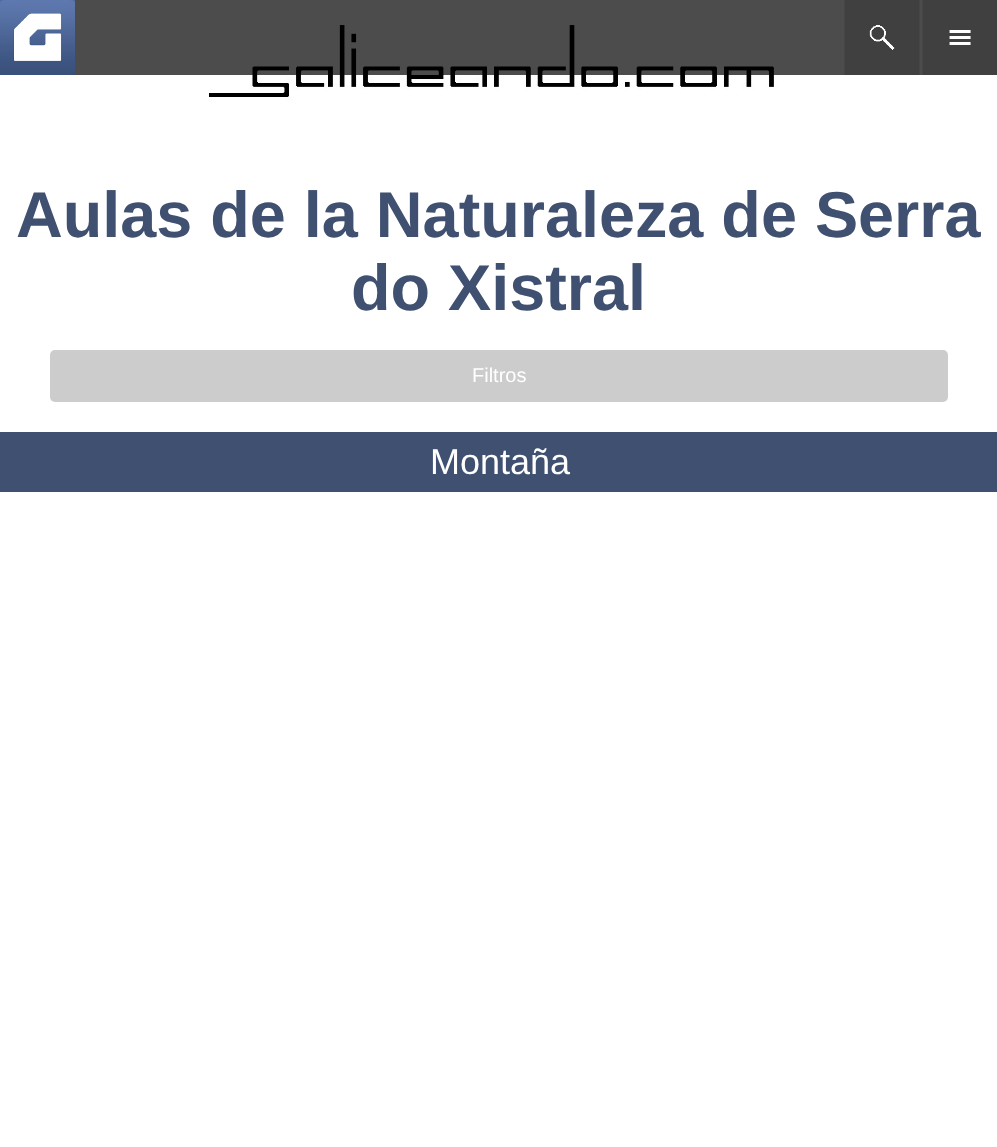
<!DOCTYPE html>
<meta charset="utf-8">
<style>body { margin: 0 } canvas { display: block }</style>
<canvas id="canvas" width="997" height="1147"></canvas>
<script type="module">
  const canvas = document.getElementById("canvas");
  const ctx = canvas.getContext("2d");
  ctx.miterLimit = 4;
  ctx.fontKerning = "normal";
  async function loadImage(src) {
    const img = new Image();
    img.src = src;
    await img.decode();
    return img;
  }

  ctx.fillStyle = "#ffffff";
  ctx.fillRect(0, 0, 997, 1147);
  ctx.drawImage(await loadImage("img4.png"), 208, 21, 569, 80);
  ctx.fillStyle = "rgba(0, 0, 0, 0.7)";
  ctx.fillRect(0, 0, 923, 75);
  ctx.drawImage(await loadImage("img1.png"), 0, 0, 75, 75);
  ctx.drawImage(await loadImage("img2.png"), 844, 0, 76, 75);
  ctx.drawImage(await loadImage("img3.png"), 922, 0, 75, 75);
  ctx.font = "bold 64.75px Liberation Sans";
  ctx.fillStyle = "#405070";
  ctx.fillText("Aulas de la Naturaleza de Serra", 16, 237);
  ctx.fillText("do Xistral", 351, 310);
  ctx.fillStyle = "#cccccc";
  ctx.beginPath();
  ctx.roundRect(50, 350, 898, 52, 5);
  ctx.fill();
  ctx.font = "20px Liberation Sans";
  ctx.fillStyle = "#ffffff";
  ctx.fillText("Filtros", 472, 382);
  ctx.fillStyle = "#405070";
  ctx.fillRect(0, 432, 997, 60);
  ctx.font = "36px Liberation Sans";
  ctx.fillStyle = "#ffffff";
  ctx.fillText("Montaña", 430, 474);
</script>
